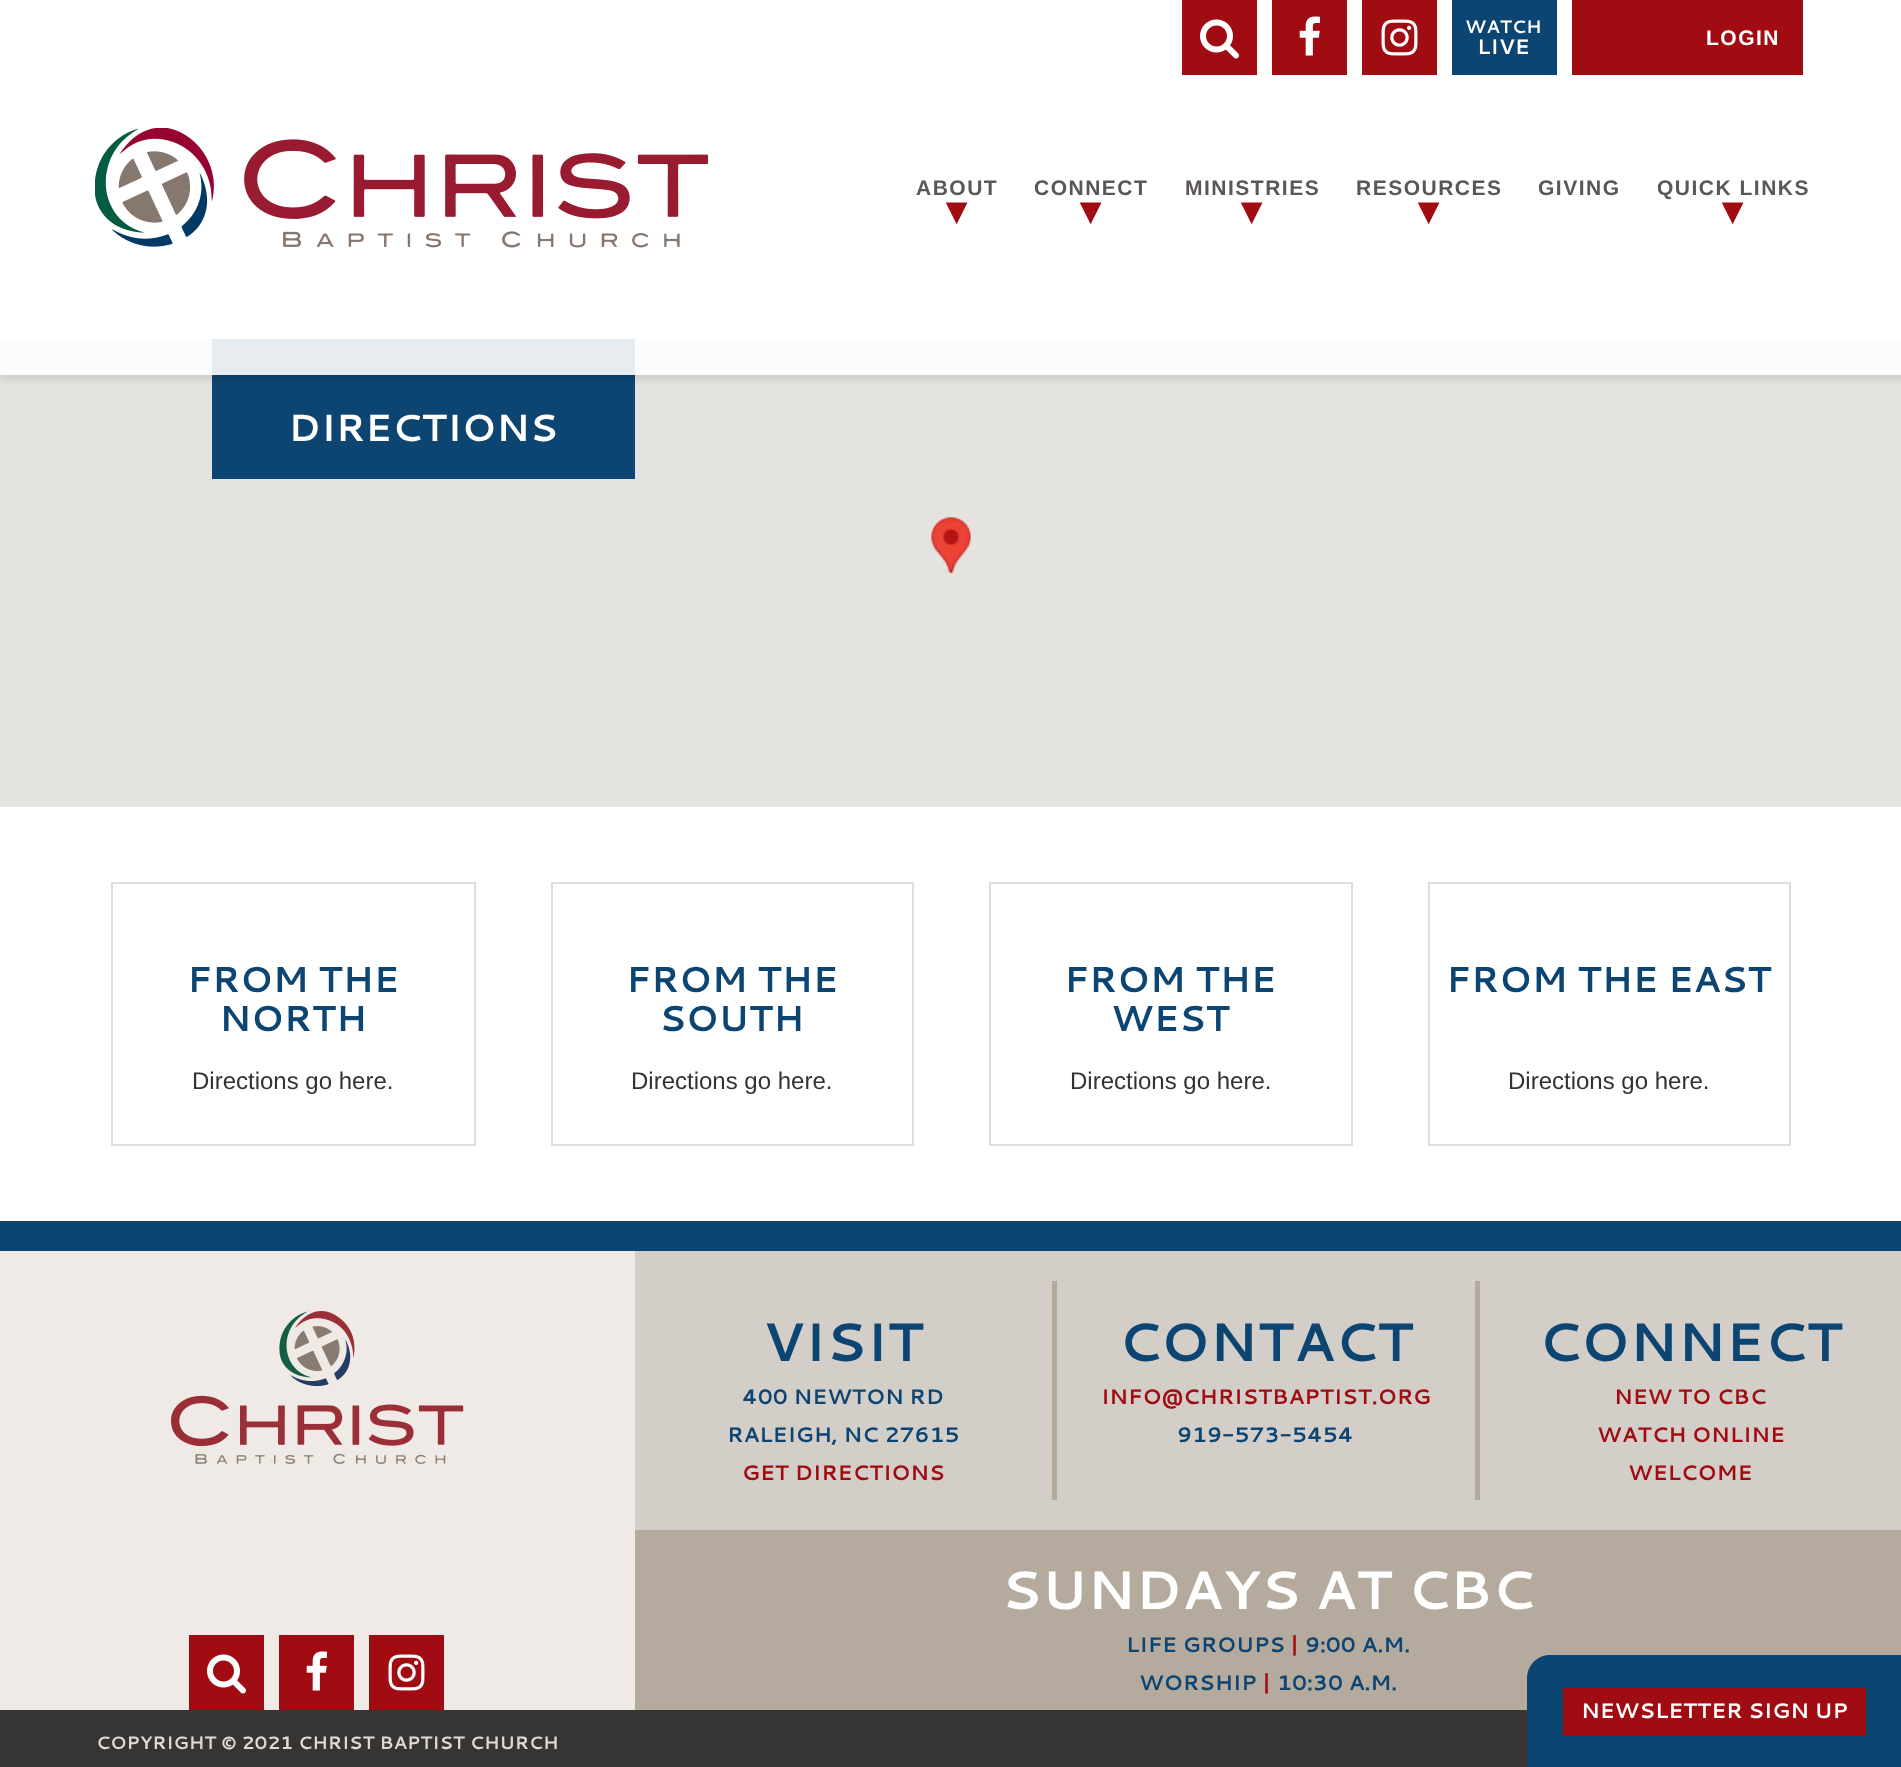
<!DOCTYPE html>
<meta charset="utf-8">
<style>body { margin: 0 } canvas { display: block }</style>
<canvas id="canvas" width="1901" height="1767"></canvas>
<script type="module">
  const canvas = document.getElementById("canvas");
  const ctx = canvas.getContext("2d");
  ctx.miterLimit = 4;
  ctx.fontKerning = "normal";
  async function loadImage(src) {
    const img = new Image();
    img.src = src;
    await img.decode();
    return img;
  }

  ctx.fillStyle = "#ffffff";
  ctx.fillRect(0, 0, 1901, 1767);
  ctx.fillStyle = "#e5e3df";
  ctx.fillRect(0, 375, 1901, 432);
  ctx.fillStyle = "#0c4472";
  ctx.fillRect(212, 375, 423, 104);
  ctx.fillStyle = "#fcfcfc";
  ctx.fillRect(0, 339, 1901, 36);
  ctx.fillStyle = "#e7ecf1";
  ctx.fillRect(212, 339, 423, 36);
  ctx.save();
  ctx.beginPath();
  ctx.rect(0, 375, 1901, 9);
  ctx.clip();
  ctx.fillStyle = "rgba(0, 0, 0, 0.1)";
  ctx.filter = "blur(4.5px)";
  ctx.beginPath();
  ctx.rect(2, 8, 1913, 372);
  ctx.fill();
  ctx.filter = "none";
  ctx.restore();
  ctx.drawImage(await loadImage("img1.png"), 95, 128, 613, 120);
  ctx.fillStyle = "#a10c13";
  ctx.fillRect(1182, 0, 75, 75);
  ctx.drawImage(await loadImage("img2.png"), 1200, 19, 39, 40);
  ctx.fillRect(1272, 0, 75, 75);
  ctx.drawImage(await loadImage("img3.png"), 1299, 16, 21, 40);
  ctx.fillRect(1362, 0, 75, 75);
  ctx.drawImage(await loadImage("img4.png"), 1381, 19, 37, 37);
  ctx.fillStyle = "#0c4472";
  ctx.fillRect(1452, 0, 105, 75);
  ctx.font = "bold 18px Cantarell";
  ctx.fillStyle = "#ffffff";
  ctx.fillText("WATCH", 1465, 33);
  ctx.font = "bold 21px Cantarell";
  ctx.fillText("LIVE", 1477, 54);
  ctx.fillStyle = "#a10c13";
  ctx.fillRect(1572, 0, 231, 75);
  ctx.letterSpacing = "1.5px";
  ctx.font = "bold 21px Liberation Sans";
  ctx.fillStyle = "#ffffff";
  ctx.fillText("LOGIN", 1706, 45);
  ctx.fillStyle = "#5b5754";
  ctx.fillText("ABOUT", 916, 195);
  ctx.font = "bold 40px DejaVu Sans";
  ctx.fillStyle = "#a10c13";
  ctx.fillText("▾", 946, 224);
  ctx.font = "bold 21px Liberation Sans";
  ctx.fillStyle = "#5b5754";
  ctx.fillText("CONNECT", 1034, 195);
  ctx.font = "bold 40px DejaVu Sans";
  ctx.fillStyle = "#a10c13";
  ctx.fillText("▾", 1080, 224);
  ctx.font = "bold 21px Liberation Sans";
  ctx.fillStyle = "#5b5754";
  ctx.fillText("MINISTRIES", 1185, 195);
  ctx.font = "bold 40px DejaVu Sans";
  ctx.fillStyle = "#a10c13";
  ctx.fillText("▾", 1241, 224);
  ctx.font = "bold 21px Liberation Sans";
  ctx.fillStyle = "#5b5754";
  ctx.fillText("RESOURCES", 1356, 195);
  ctx.font = "bold 40px DejaVu Sans";
  ctx.fillStyle = "#a10c13";
  ctx.fillText("▾", 1418, 224);
  ctx.font = "bold 21px Liberation Sans";
  ctx.fillStyle = "#5b5754";
  ctx.fillText("GIVING", 1538, 195);
  ctx.fillText("QUICK LINKS", 1657, 195);
  ctx.font = "bold 40px DejaVu Sans";
  ctx.fillStyle = "#a10c13";
  ctx.fillText("▾", 1722, 224);
  ctx.letterSpacing = "0px";
  ctx.font = "bold 37.75px Cantarell";
  ctx.fillStyle = "#ffffff";
  ctx.fillText("DIRECTIONS", 288, 441);
  ctx.drawImage(await loadImage("img5.png"), 931, 517, 40, 56);
  ctx.strokeStyle = "#dddddd";
  ctx.lineWidth = 2;
  ctx.strokeRect(112, 883, 363, 262);
  ctx.font = "bold 36px Cantarell";
  ctx.fillStyle = "#0c4472";
  ctx.fillText("FROM THE", 187, 992);
  ctx.fillText("NORTH", 219, 1031);
  ctx.font = "24px Liberation Sans";
  ctx.fillStyle = "#333333";
  ctx.fillText("Directions go here.", 192, 1089);
  ctx.strokeRect(552, 883, 361, 262);
  ctx.font = "bold 36px Cantarell";
  ctx.fillStyle = "#0c4472";
  ctx.fillText("FROM THE", 626, 992);
  ctx.fillText("SOUTH", 659, 1031);
  ctx.font = "24px Liberation Sans";
  ctx.fillStyle = "#333333";
  ctx.fillText("Directions go here.", 631, 1089);
  ctx.strokeRect(990, 883, 362, 262);
  ctx.font = "bold 36px Cantarell";
  ctx.fillStyle = "#0c4472";
  ctx.fillText("FROM THE", 1064, 992);
  ctx.fillText("WEST", 1111, 1031);
  ctx.font = "24px Liberation Sans";
  ctx.fillStyle = "#333333";
  ctx.fillText("Directions go here.", 1070, 1089);
  ctx.strokeRect(1429, 883, 361, 262);
  ctx.font = "bold 36px Cantarell";
  ctx.fillStyle = "#0c4472";
  ctx.fillText("FROM THE EAST", 1446, 992);
  ctx.font = "24px Liberation Sans";
  ctx.fillStyle = "#333333";
  ctx.fillText("Directions go here.", 1508, 1089);
  ctx.fillStyle = "#0c4472";
  ctx.fillRect(0, 1221, 1901, 30);
  ctx.fillStyle = "#efeae5";
  ctx.fillRect(0, 1251, 635, 459);
  ctx.drawImage(await loadImage("img6.png"), 171, 1311, 293, 153);
  ctx.fillStyle = "#a10c13";
  ctx.fillRect(189, 1635, 75, 75);
  ctx.drawImage(await loadImage("img2.png"), 207, 1654, 39, 40);
  ctx.fillRect(279, 1635, 75, 75);
  ctx.drawImage(await loadImage("img3.png"), 306, 1651, 21, 40);
  ctx.fillRect(369, 1635, 75, 75);
  ctx.drawImage(await loadImage("img4.png"), 388, 1654, 37, 37);
  ctx.fillStyle = "#d4cec8";
  ctx.fillRect(635, 1251, 1266, 279);
  ctx.fillStyle = "#b4aa9e";
  ctx.fillRect(1052, 1281, 5, 219);
  ctx.font = "bold 54px Cantarell";
  ctx.fillStyle = "#0c4472";
  ctx.fillText("VISIT", 763, 1361);
  ctx.font = "bold 21px Cantarell";
  ctx.fillText("400 NEWTON RD", 742, 1404);
  ctx.fillText("RALEIGH, NC 27615", 727, 1442);
  ctx.fillStyle = "#a10c13";
  ctx.fillText("GET DIRECTIONS", 742, 1480);
  ctx.fillStyle = "#b4aa9e";
  ctx.fillRect(1475, 1281, 5, 219);
  ctx.font = "bold 54px Cantarell";
  ctx.fillStyle = "#0c4472";
  ctx.fillText("CONTACT", 1118, 1361);
  ctx.font = "bold 21px Cantarell";
  ctx.fillStyle = "#a10c13";
  ctx.fillText("INFO@CHRISTBAPTIST.ORG", 1101, 1404);
  ctx.fillStyle = "#0c4472";
  ctx.fillText("919-573-5454", 1177, 1442);
  ctx.font = "bold 54px Cantarell";
  ctx.fillText("CONNECT", 1538, 1361);
  ctx.font = "bold 21px Cantarell";
  ctx.fillStyle = "#a10c13";
  ctx.fillText("NEW TO CBC", 1614, 1404);
  ctx.fillText("WATCH ONLINE", 1597, 1442);
  ctx.fillText("WELCOME", 1628, 1480);
  ctx.fillStyle = "#b4aa9e";
  ctx.fillRect(635, 1530, 1266, 180);
  ctx.font = "bold 54px Cantarell";
  ctx.fillStyle = "#ffffff";
  ctx.fillText("SUNDAYS AT CBC", 1001, 1609);
  ctx.font = "bold 21px Cantarell";
  ctx.fillStyle = "#0c4472";
  ctx.fillText("LIFE GROUPS", 1126, 1652);
  ctx.fillStyle = "#a10c13";
  ctx.fillText("|", 1290, 1652);
  ctx.fillStyle = "#0c4472";
  ctx.fillText("9:00 A.M.", 1305, 1652);
  ctx.fillText("WORSHIP", 1139, 1690);
  ctx.fillStyle = "#a10c13";
  ctx.fillText("|", 1262, 1690);
  ctx.fillStyle = "#0c4472";
  ctx.fillText("10:30 A.M.", 1277, 1690);
  ctx.fillStyle = "#373533";
  ctx.fillRect(0, 1710, 1527, 57);
  ctx.font = "bold 18px Cantarell";
  ctx.fillStyle = "#dfdad5";
  ctx.fillText("COPYRIGHT © 2021 CHRIST BAPTIST CHURCH", 96, 1749);
  ctx.fillStyle = "#0c4472";
  ctx.beginPath();
  ctx.moveTo(1550, 1655);
  ctx.lineTo(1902, 1655);
  ctx.lineTo(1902, 1767);
  ctx.lineTo(1527, 1767);
  ctx.lineTo(1527, 1678);
  ctx.bezierCurveTo(1527, 1665.5, 1537.5, 1655, 1550, 1655);
  ctx.closePath();
  ctx.fill();
  ctx.fillStyle = "#a10c13";
  ctx.fillRect(1563, 1688, 303, 48);
  ctx.font = "bold 21px Cantarell";
  ctx.fillStyle = "#ffffff";
  ctx.fillText("NEWSLETTER SIGN UP", 1581, 1718);
</script>
